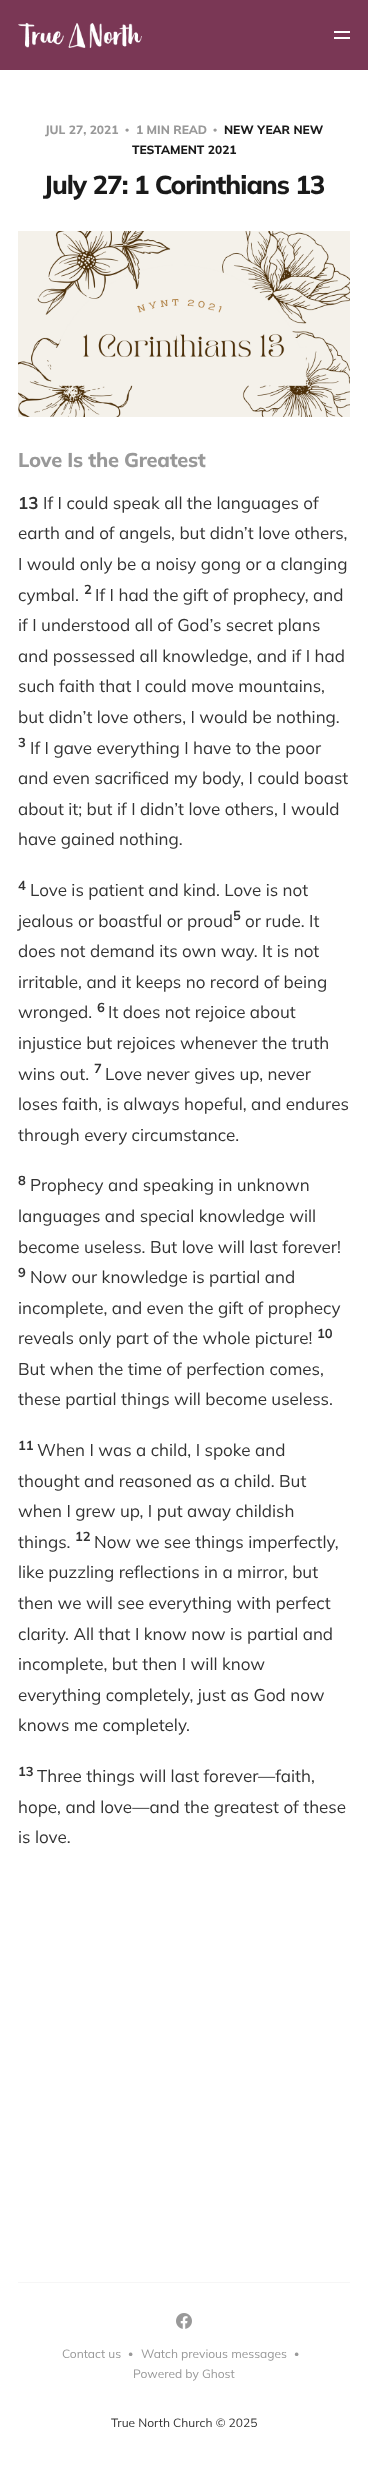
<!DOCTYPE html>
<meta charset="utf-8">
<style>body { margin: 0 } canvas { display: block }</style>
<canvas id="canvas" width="368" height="2492"></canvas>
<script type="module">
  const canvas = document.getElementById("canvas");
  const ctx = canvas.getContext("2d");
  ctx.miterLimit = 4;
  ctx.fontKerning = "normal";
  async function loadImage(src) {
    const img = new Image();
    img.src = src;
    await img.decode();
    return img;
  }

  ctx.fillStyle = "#ffffff";
  ctx.fillRect(0, 0, 368, 2492);
  ctx.fillStyle = "#7a3755";
  ctx.fillRect(0, 0, 368, 70);
  ctx.drawImage(await loadImage("img1.png"), 18, 23, 124, 25);
  ctx.fillStyle = "#ffffff";
  ctx.fillRect(334, 31, 16, 2);
  ctx.fillRect(334, 37, 16, 2);
  ctx.font = "800 12px Mulish";
  ctx.fillStyle = "#999999";
  ctx.fillText("JUL 27, 2021", 45, 134);
  ctx.font = "bold 12px Liberation Serif";
  ctx.fillText("•", 125, 134);
  ctx.font = "800 12px Mulish";
  ctx.fillText("1 MIN READ", 136, 134);
  ctx.font = "bold 12px Liberation Serif";
  ctx.fillText("•", 213, 134);
  ctx.font = "800 12px Mulish";
  ctx.fillStyle = "#1a1a1a";
  ctx.fillText("NEW YEAR NEW", 224, 134);
  ctx.fillText("TESTAMENT 2021", 132, 154);
  ctx.letterSpacing = "-1px";
  ctx.font = "800 26px Mulish";
  ctx.fillText("July 27: 1 Corinthians 13", 43, 194);
  ctx.drawImage(await loadImage("img2.png"), 18, 231, 332, 186);
  ctx.letterSpacing = "-0.25px";
  ctx.font = "800 20px Mulish";
  ctx.fillStyle = "#999999";
  ctx.fillText("Love Is the Greatest", 18, 467);
  ctx.letterSpacing = "0px";
  ctx.font = "bold 17px Mulish";
  ctx.fillStyle = "#333333";
  ctx.fillText("13", 18, 509);
  ctx.font = "17px Mulish";
  ctx.fillText("If I could speak all the languages of", 43, 509);
  ctx.fillText("earth and of angels, but didn’t love others,", 18, 539);
  ctx.fillText("I would only be a noisy gong or a clanging", 18, 570);
  ctx.fillText("cymbal.", 18, 601);
  ctx.font = "bold 13px Mulish";
  ctx.fillText("2", 84, 594);
  ctx.font = "17px Mulish";
  ctx.fillText("If I had the gift of prophecy, and", 95, 601);
  ctx.fillText("if I understood all of God’s secret plans", 18, 631);
  ctx.fillText("and possessed all knowledge, and if I had", 18, 662);
  ctx.fillText("such faith that I could move mountains,", 18, 692);
  ctx.fillText("but didn’t love others, I would be nothing.", 18, 723);
  ctx.font = "bold 13px Mulish";
  ctx.fillText("3", 18, 747);
  ctx.font = "17px Mulish";
  ctx.fillText("If I gave everything I have to the poor", 30, 754);
  ctx.fillText("and even sacrificed my body, I could boast", 18, 784);
  ctx.fillText("about it; but if I didn’t love others, I would", 18, 815);
  ctx.fillText("have gained nothing.", 18, 845);
  ctx.font = "bold 13px Mulish";
  ctx.fillText("4", 18, 890);
  ctx.font = "17px Mulish";
  ctx.fillText("Love is patient and kind. Love is not", 30, 896);
  ctx.fillText("jealous or boastful or proud", 18, 927);
  ctx.font = "bold 13px Mulish";
  ctx.fillText("5", 233, 920);
  ctx.font = "17px Mulish";
  ctx.fillText("or rude. It", 245, 927);
  ctx.fillText("does not demand its own way. It is not", 18, 957);
  ctx.fillText("irritable, and it keeps no record of being", 18, 988);
  ctx.fillText("wronged.", 18, 1018);
  ctx.font = "bold 13px Mulish";
  ctx.fillText("6", 97, 1012);
  ctx.font = "17px Mulish";
  ctx.fillText("It does not rejoice about", 108, 1018);
  ctx.fillText("injustice but rejoices whenever the truth", 18, 1049);
  ctx.fillText("wins out.", 18, 1080);
  ctx.font = "bold 13px Mulish";
  ctx.fillText("7", 94, 1073);
  ctx.font = "17px Mulish";
  ctx.fillText("Love never gives up, never", 105, 1080);
  ctx.fillText("loses faith, is always hopeful, and endures", 18, 1110);
  ctx.fillText("through every circumstance.", 18, 1141);
  ctx.font = "bold 13px Mulish";
  ctx.fillText("8", 18, 1185);
  ctx.font = "17px Mulish";
  ctx.fillText("Prophecy and speaking in unknown", 30, 1191);
  ctx.fillText("languages and special knowledge will", 18, 1222);
  ctx.fillText("become useless. But love will last forever!", 18, 1253);
  ctx.font = "bold 13px Mulish";
  ctx.fillText("9", 18, 1277);
  ctx.font = "17px Mulish";
  ctx.fillText("Now our knowledge is partial and", 30, 1283);
  ctx.fillText("incomplete, and even the gift of prophecy", 18, 1314);
  ctx.fillText("reveals only part of the whole picture!", 18, 1344);
  ctx.font = "bold 13px Mulish";
  ctx.fillText("10", 317, 1338);
  ctx.font = "17px Mulish";
  ctx.fillText("But when the time of perfection comes,", 18, 1375);
  ctx.fillText("these partial things will become useless.", 18, 1405);
  ctx.font = "bold 13px Mulish";
  ctx.fillText("11", 18, 1450);
  ctx.font = "17px Mulish";
  ctx.fillText("When I was a child, I spoke and", 37, 1456);
  ctx.fillText("thought and reasoned as a child. But", 18, 1487);
  ctx.fillText("when I grew up, I put away childish", 18, 1517);
  ctx.fillText("things.", 18, 1548);
  ctx.font = "bold 13px Mulish";
  ctx.fillText("12", 75, 1541);
  ctx.font = "17px Mulish";
  ctx.fillText("Now we see things imperfectly,", 94, 1548);
  ctx.fillText("like puzzling reflections in a mirror, but", 18, 1578);
  ctx.fillText("then we will see everything with perfect", 18, 1609);
  ctx.fillText("clarity. All that I know now is partial and", 18, 1640);
  ctx.fillText("incomplete, but then I will know", 18, 1670);
  ctx.fillText("everything completely, just as God now", 18, 1701);
  ctx.fillText("knows me completely.", 18, 1731);
  ctx.font = "bold 13px Mulish";
  ctx.fillText("13", 18, 1776);
  ctx.font = "17px Mulish";
  ctx.fillText("Three things will last forever—faith,", 37, 1782);
  ctx.fillText("hope, and love—and the greatest of these", 18, 1813);
  ctx.fillText("is love.", 18, 1843);
  ctx.fillStyle = "#f6f6f6";
  ctx.fillRect(18, 2282, 332, 1);
  ctx.drawImage(await loadImage("img3.png"), 176, 2313, 16, 16);
  ctx.font = "12px Mulish";
  ctx.fillStyle = "#999999";
  ctx.fillText("Contact us", 62, 2358);
  ctx.font = "10px Mulish";
  ctx.fillText("•", 128, 2357);
  ctx.font = "12px Mulish";
  ctx.fillText("Watch previous messages", 141, 2358);
  ctx.font = "10px Mulish";
  ctx.fillText("•", 294, 2357);
  ctx.font = "12px Mulish";
  ctx.fillText("Powered by Ghost", 133, 2378);
  ctx.fillStyle = "#333333";
  ctx.fillText("True North Church © 2025", 111, 2427);
</script>
